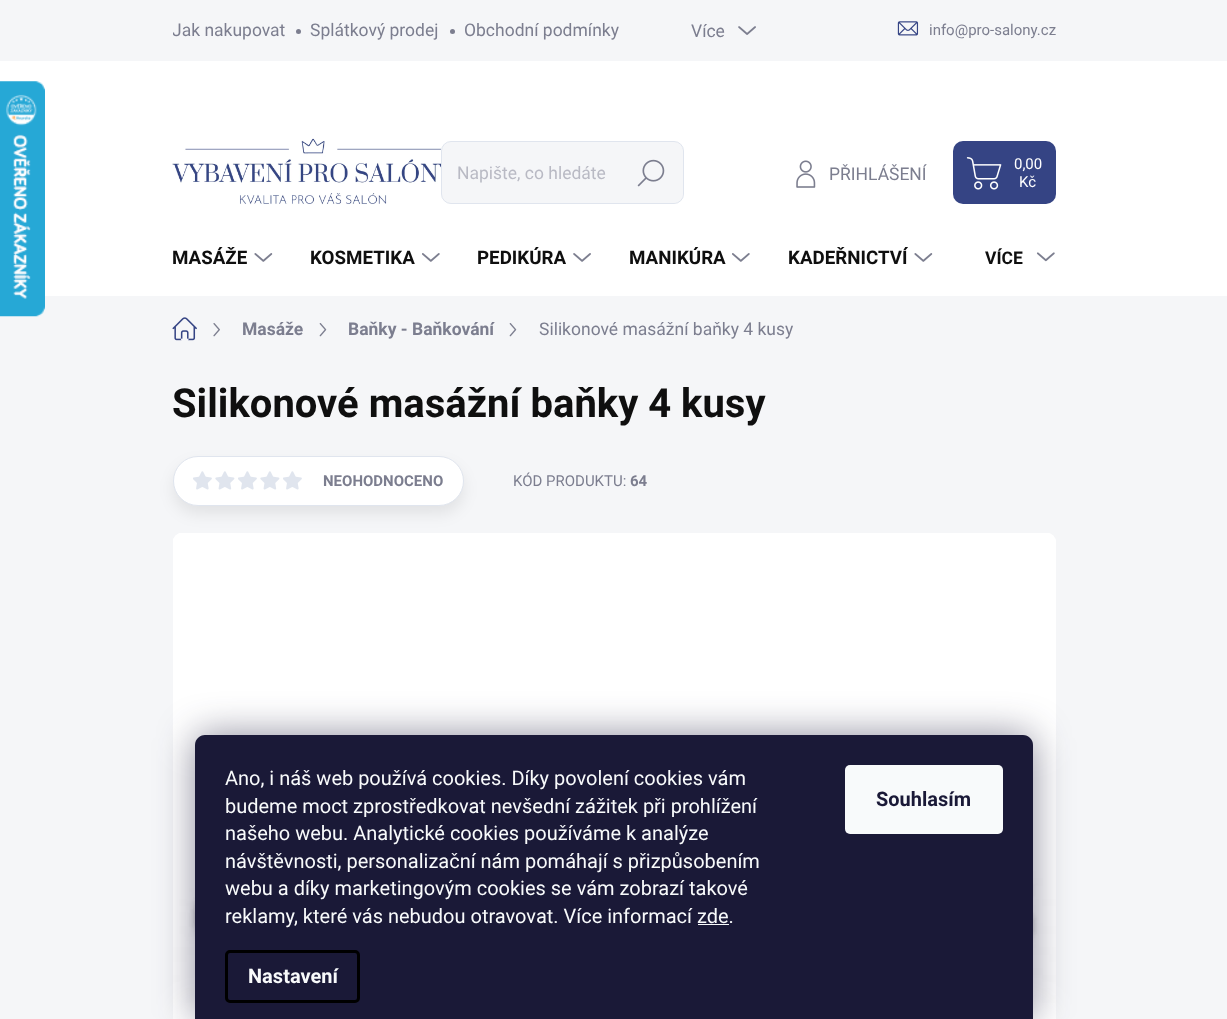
<!DOCTYPE html>
<meta charset="utf-8">
<style>body { margin: 0 } canvas { display: block }</style>
<canvas id="canvas" width="1227" height="1019"></canvas>
<script type="module">
  const canvas = document.getElementById("canvas");
  const ctx = canvas.getContext("2d");
  ctx.miterLimit = 4;
  ctx.fontKerning = "normal";
  async function loadImage(src) {
    const img = new Image();
    img.src = src;
    await img.decode();
    return img;
  }

  ctx.fillStyle = "#f5f6f8";
  ctx.fillRect(0, 0, 1227, 1019);
  ctx.fillStyle = "#ffffff";
  ctx.fillRect(0, 61, 1227, 235);
  ctx.drawImage(await loadImage("img1.png"), 0, 81, 45, 236);
  ctx.save();
  ctx.beginPath();
  ctx.rect(173, 0, 617, 61);
  ctx.clip();
  ctx.font = "17.5px Roboto";
  ctx.fillStyle = "#7c7e8f";
  ctx.fillText("Jak nakupovat", 172, 36);
  ctx.restore();
  ctx.fillStyle = "#7c7e8f";
  ctx.beginPath();
  ctx.arc(298.5, 31.5, 2.5, 0, Math.PI * 2);
  ctx.fill();
  ctx.font = "17.5px Roboto";
  ctx.fillText("Splátkový prodej", 310, 36);
  ctx.beginPath();
  ctx.arc(452.5, 31.5, 2.5, 0, Math.PI * 2);
  ctx.fill();
  ctx.fillText("Obchodní podmínky", 464, 36);
  ctx.fillText("Více", 691, 37);
  ctx.drawImage(await loadImage("img2.png"), 738, 26, 18, 9);
  ctx.drawImage(await loadImage("img3.png"), 897, 21, 22, 15);
  ctx.font = "15px Roboto";
  ctx.fillText("info@pro-salony.cz", 929, 35);
  ctx.drawImage(await loadImage("img4.png"), 172, 138, 282, 67);
  ctx.fillStyle = "#f5f6f8";
  ctx.beginPath();
  ctx.roundRect(441.5, 141.5, 242, 62, 9.5);
  ctx.fill();
  ctx.strokeStyle = "#e0e5ee";
  ctx.stroke();
  ctx.font = "17.5px Roboto";
  ctx.fillStyle = "#b9bac4";
  ctx.fillText("Napište, co hledáte", 457, 179);
  ctx.fillStyle = "#f5f6f8";
  ctx.beginPath();
  ctx.roundRect(620, 143, 63, 60, 10);
  ctx.fill();
  ctx.drawImage(await loadImage("img5.png"), 637, 159, 28, 28);
  ctx.drawImage(await loadImage("img6.png"), 796, 160, 20, 28);
  ctx.fillStyle = "#7c7e8f";
  ctx.fillText("PŘIHLÁŠENÍ", 829, 180);
  ctx.fillStyle = "#354484";
  ctx.beginPath();
  ctx.roundRect(953, 141, 103, 63, 10);
  ctx.fill();
  ctx.drawImage(await loadImage("img7.png"), 966, 157, 36, 33);
  ctx.font = "15px Roboto";
  ctx.fillStyle = "#ffffff";
  ctx.fillText("0,00", 1014, 169);
  ctx.fillText("Kč", 1019, 187);
  ctx.font = "bold 18.75px Roboto";
  ctx.fillStyle = "#0f0f0f";
  ctx.fillText("MASÁŽE", 172, 264);
  ctx.drawImage(await loadImage("img8.png"), 254, 253, 19, 9);
  ctx.fillText("KOSMETIKA", 310, 264);
  ctx.drawImage(await loadImage("img9.png"), 422, 253, 18, 9);
  ctx.fillText("PEDIKÚRA", 477, 264);
  ctx.drawImage(await loadImage("img10.png"), 573, 253, 18, 9);
  ctx.fillText("MANIKÚRA", 629, 264);
  ctx.drawImage(await loadImage("img9.png"), 732, 253, 18, 9);
  ctx.fillText("KADEŘNICTVÍ", 788, 264);
  ctx.drawImage(await loadImage("img8.png"), 914, 253, 19, 9);
  ctx.font = "bold 17.5px Roboto";
  ctx.fillText("VÍCE", 985, 264);
  ctx.drawImage(await loadImage("img11.png"), 1036, 252, 19, 10);
  ctx.drawImage(await loadImage("img12.png"), 172, 317, 25, 24);
  ctx.drawImage(await loadImage("img13.png"), 213, 323, 7, 14);
  ctx.fillStyle = "#7c7e8f";
  ctx.fillText("Masáže", 242, 335);
  ctx.drawImage(await loadImage("img14.png"), 319, 323, 8, 14);
  ctx.fillText("Baňky - Baňkování", 348, 335);
  ctx.drawImage(await loadImage("img14.png"), 509, 323, 8, 14);
  ctx.font = "17.5px Roboto";
  ctx.fillText("Silikonové masážní baňky 4 kusy", 539, 335);
  ctx.font = "bold 40px Roboto";
  ctx.fillStyle = "#0f0f0f";
  ctx.fillText("Silikonové masážní baňky 4 kusy", 172, 417);
  ctx.fillStyle = "rgba(0, 0, 0, 0.08)";
  ctx.filter = "blur(7.5px)";
  ctx.beginPath();
  ctx.roundRect(173, 464, 291, 50, 25);
  ctx.fill();
  ctx.filter = "none";
  ctx.fillStyle = "#ffffff";
  ctx.beginPath();
  ctx.roundRect(173.5, 456.5, 290, 49, 24.5);
  ctx.fill();
  ctx.stroke();
  ctx.drawImage(await loadImage("img15.png"), 193, 471, 19, 19);
  ctx.drawImage(await loadImage("img16.png"), 215, 471, 20, 19);
  ctx.drawImage(await loadImage("img15.png"), 238, 471, 19, 19);
  ctx.drawImage(await loadImage("img16.png"), 260, 471, 20, 19);
  ctx.drawImage(await loadImage("img15.png"), 283, 471, 19, 19);
  ctx.font = "bold 15px Roboto";
  ctx.fillStyle = "#7c7e8f";
  ctx.fillText("NEOHODNOCENO", 323, 486);
  ctx.font = "15px Roboto";
  ctx.fillText("KÓD PRODUKTU:", 513, 486);
  ctx.font = "bold 15px Roboto";
  ctx.fillText("64", 630, 486);
  ctx.drawImage(await loadImage("img17.png"), 173, 533, 883, 486);
  ctx.fillStyle = "rgba(27, 25, 57, 0.5)";
  ctx.filter = "blur(19px)";
  ctx.beginPath();
  ctx.roundRect(195, 735, 838, 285, 10);
  ctx.fill();
  ctx.filter = "none";
  ctx.fillStyle = "#1a1937";
  ctx.beginPath();
  ctx.moveTo(205, 735);
  ctx.lineTo(1023, 735);
  ctx.bezierCurveTo(1028.5, 735, 1033, 739.5, 1033, 745);
  ctx.lineTo(1033, 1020);
  ctx.lineTo(195, 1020);
  ctx.lineTo(195, 745);
  ctx.bezierCurveTo(195, 739.5, 199.5, 735, 205, 735);
  ctx.closePath();
  ctx.fill();
  ctx.font = "20px Roboto";
  ctx.fillStyle = "#f8fafb";
  ctx.fillText("Ano, i náš web používá cookies. Díky povolení cookies vám", 225, 785);
  ctx.fillText("budeme moct zprostředkovat nevšední zážitek při prohlížení", 225, 813);
  ctx.fillText("našeho webu. Analytické cookies používáme k analýze", 225, 840);
  ctx.fillText("návštěvnosti, personalizační nám pomáhají s přizpůsobením", 225, 868);
  ctx.fillText("webu a díky marketingovým cookies se vám zobrazí takové", 225, 895);
  ctx.fillText("reklamy, které vás nebudou otravovat. Více informací zde.", 225, 923);
  ctx.fillRect(698, 924, 31, 1);
  ctx.beginPath();
  ctx.roundRect(226.5, 951.5, 132, 50, 3.5);
  ctx.strokeStyle = "#000000";
  ctx.lineWidth = 3;
  ctx.stroke();
  ctx.font = "bold 20px Roboto";
  ctx.fillText("Nastavení", 248, 983);
  ctx.beginPath();
  ctx.roundRect(845, 765, 158, 69, 5);
  ctx.fill();
  ctx.fillStyle = "#1a1937";
  ctx.fillText("Souhlasím", 876, 806);
</script>
